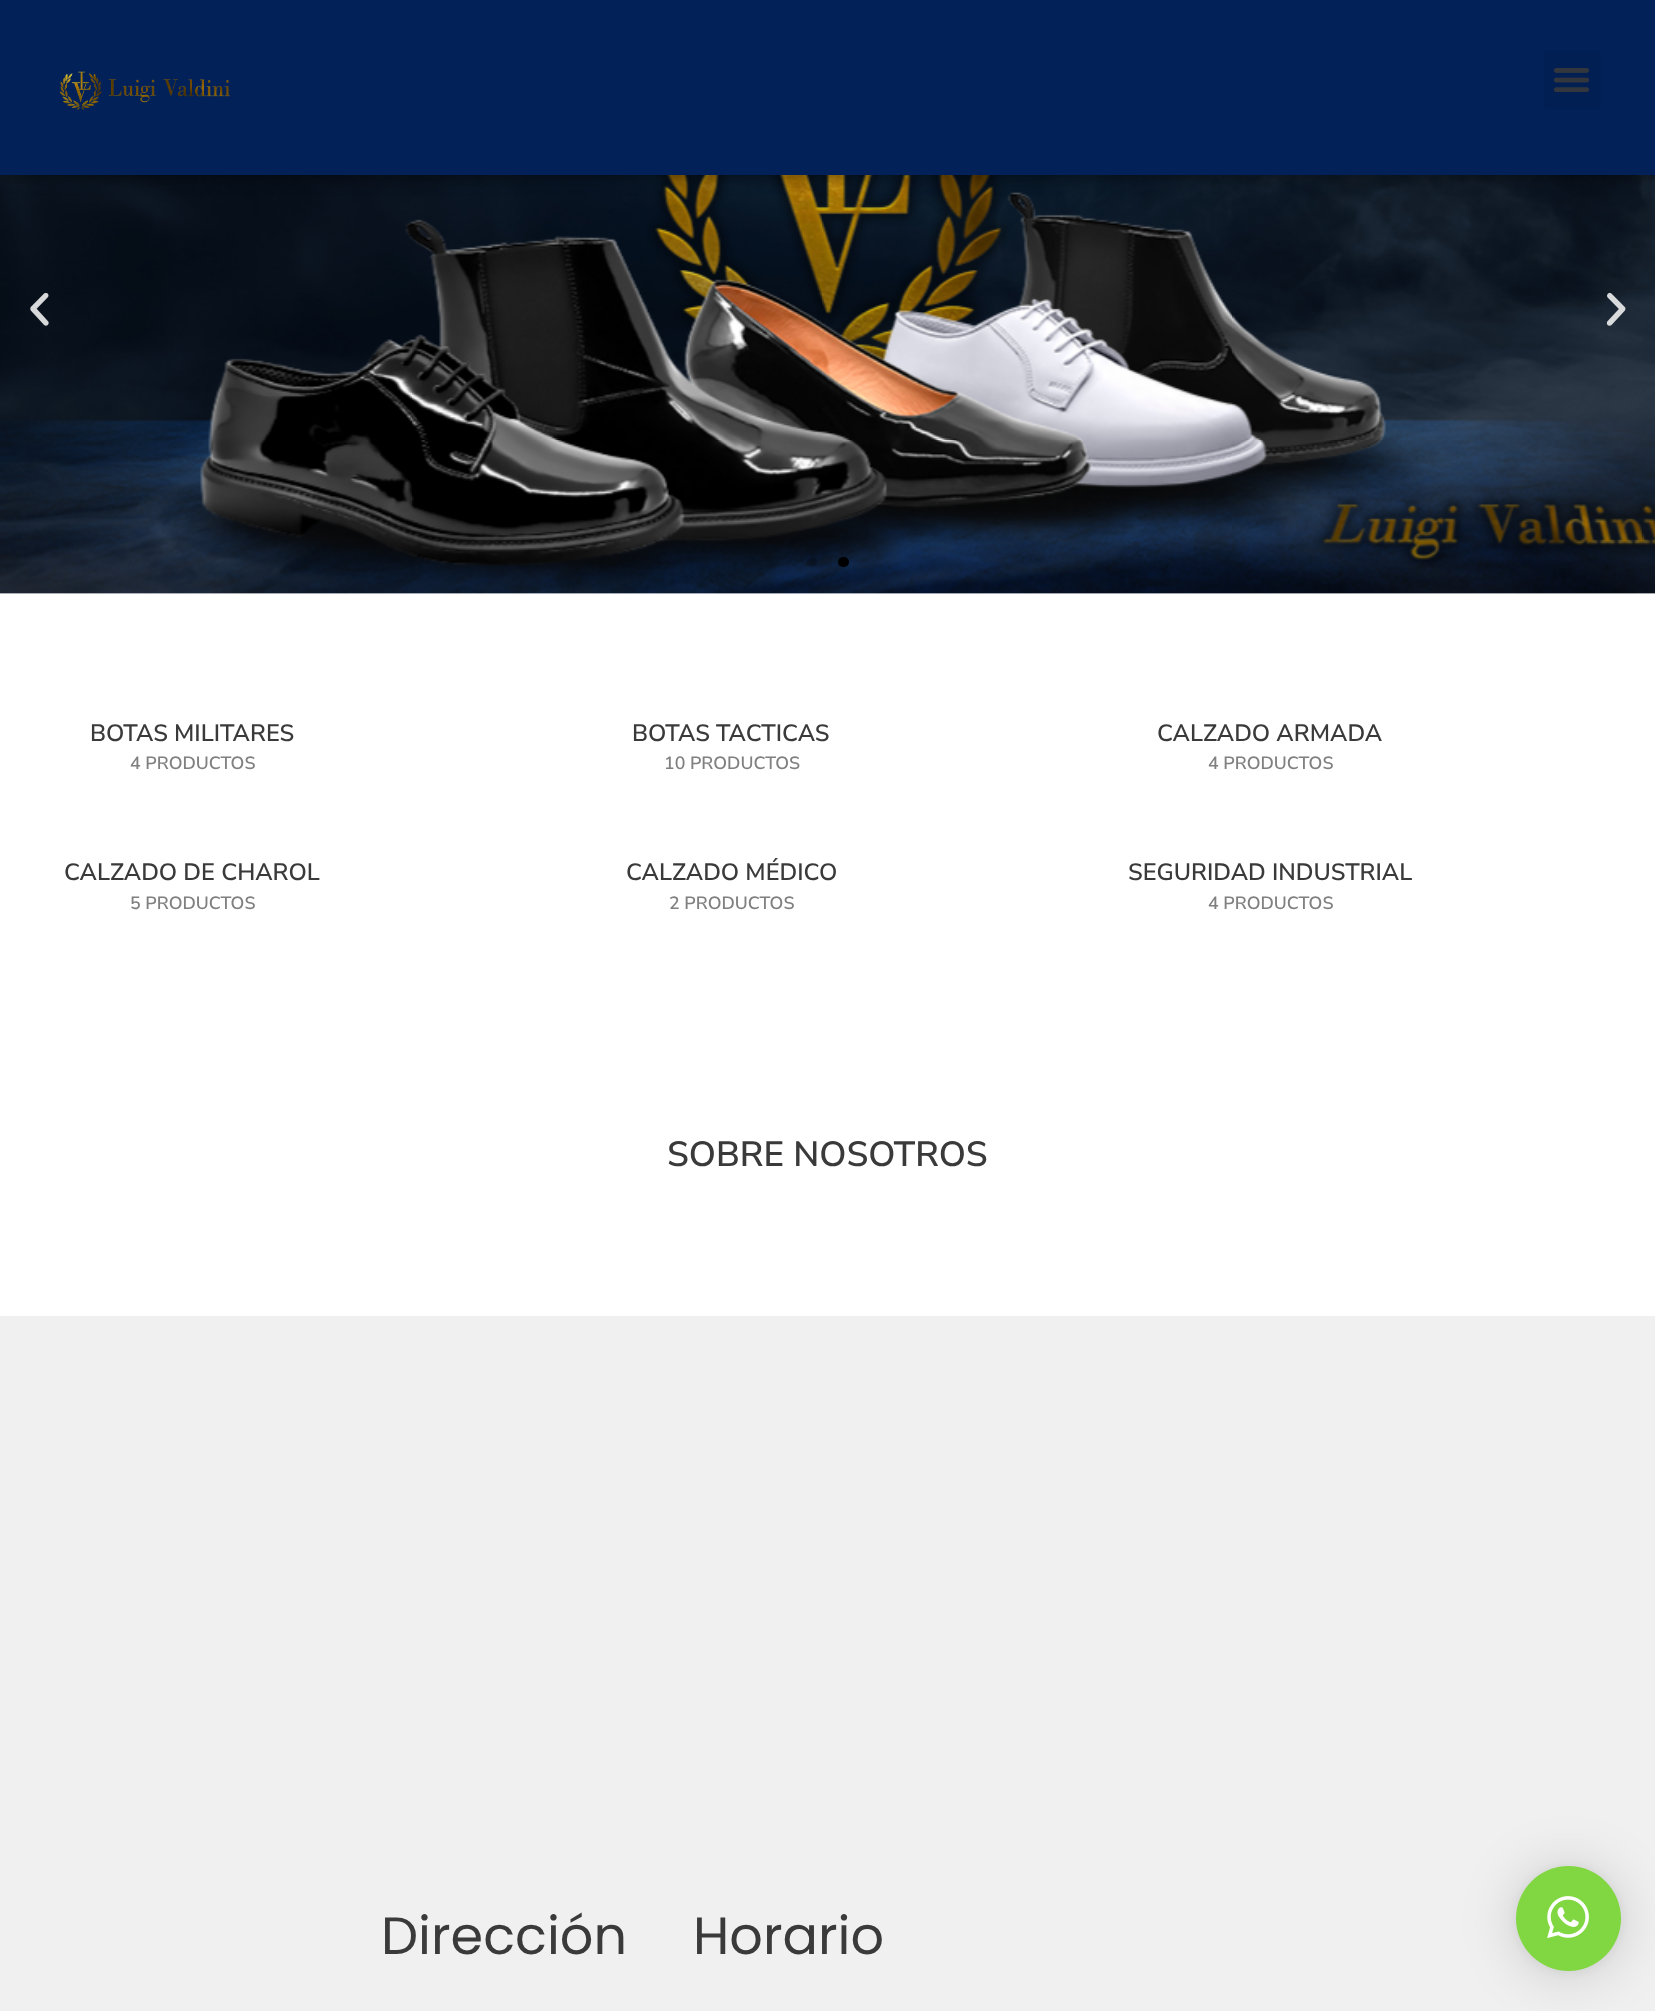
<!DOCTYPE html>
<meta charset="utf-8">
<style>body { margin: 0 } canvas { display: block }</style>
<canvas id="canvas" width="1655" height="2011"></canvas>
<script type="module">
  const canvas = document.getElementById("canvas");
  const ctx = canvas.getContext("2d");
  ctx.miterLimit = 4;
  ctx.fontKerning = "normal";
  async function loadImage(src) {
    const img = new Image();
    img.src = src;
    await img.decode();
    return img;
  }

  ctx.fillStyle = "#ffffff";
  ctx.fillRect(0, 0, 1655, 2011);
  ctx.drawImage(await loadImage("img3.png"), 0, 175, 1655, 419);
  ctx.fillStyle = "rgba(0, 0, 0, 0.5)";
  ctx.filter = "blur(9px)";
  ctx.beginPath();
  ctx.rect(0, 0, 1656, 175);
  ctx.fill();
  ctx.filter = "none";
  ctx.fillStyle = "#022158";
  ctx.fillRect(0, 0, 1655, 175);
  ctx.drawImage(await loadImage("img1.png"), 59, 71, 171, 39);
  ctx.fillStyle = "#021f54";
  ctx.beginPath();
  ctx.roundRect(1544, 51, 57, 58, 5);
  ctx.fill();
  ctx.drawImage(await loadImage("img2.png"), 1553, 68, 37, 24);
  ctx.drawImage(await loadImage("img4.png"), 30, 292, 19, 34);
  ctx.drawImage(await loadImage("img5.png"), 1606, 292, 20, 34);
  ctx.fillStyle = "rgba(0, 0, 0, 0.2)";
  ctx.beginPath();
  ctx.arc(812, 562, 5, 0, Math.PI * 2);
  ctx.fill();
  ctx.fillStyle = "#000000";
  ctx.beginPath();
  ctx.roundRect(838, 557, 11, 10, 5);
  ctx.fill();
  ctx.font = "600 23.6px Nunito Sans";
  ctx.fillStyle = "#3a3a3a";
  ctx.fillText("BOTAS MILITARES", 90, 741);
  ctx.font = "600 17.75px Nunito Sans";
  ctx.fillStyle = "#808080";
  ctx.fillText("4 PRODUCTOS", 130, 769);
  ctx.font = "600 23.6px Nunito Sans";
  ctx.fillStyle = "#3a3a3a";
  ctx.fillText("BOTAS TACTICAS", 632, 741);
  ctx.font = "600 17.75px Nunito Sans";
  ctx.fillStyle = "#808080";
  ctx.fillText("10 PRODUCTOS", 664, 769);
  ctx.font = "600 23.6px Nunito Sans";
  ctx.fillStyle = "#3a3a3a";
  ctx.fillText("CALZADO ARMADA", 1157, 741);
  ctx.font = "600 17.75px Nunito Sans";
  ctx.fillStyle = "#808080";
  ctx.fillText("4 PRODUCTOS", 1208, 769);
  ctx.font = "600 23.6px Nunito Sans";
  ctx.fillStyle = "#3a3a3a";
  ctx.fillText("CALZADO DE CHAROL", 64, 880);
  ctx.font = "600 17.75px Nunito Sans";
  ctx.fillStyle = "#808080";
  ctx.fillText("5 PRODUCTOS", 130, 909);
  ctx.font = "600 23.6px Nunito Sans";
  ctx.fillStyle = "#3a3a3a";
  ctx.fillText("CALZADO MÉDICO", 626, 880);
  ctx.font = "600 17.75px Nunito Sans";
  ctx.fillStyle = "#808080";
  ctx.fillText("2 PRODUCTOS", 669, 909);
  ctx.font = "600 23.6px Nunito Sans";
  ctx.fillStyle = "#3a3a3a";
  ctx.fillText("SEGURIDAD INDUSTRIAL", 1128, 880);
  ctx.font = "600 17.75px Nunito Sans";
  ctx.fillStyle = "#808080";
  ctx.fillText("4 PRODUCTOS", 1208, 909);
  ctx.font = "600 35px Nunito Sans";
  ctx.fillStyle = "#3a3a3a";
  ctx.fillText("SOBRE NOSOTROS", 667, 1166);
  ctx.fillStyle = "#f0f0f0";
  ctx.fillRect(0, 1316, 1655, 695);
  ctx.font = "52.5px Poppins";
  ctx.fillStyle = "#3a3a3a";
  ctx.fillText("Dirección", 381, 1954);
  ctx.fillText("Horario", 693, 1954);
  ctx.fillStyle = "rgba(0, 0, 0, 0.16)";
  ctx.filter = "blur(28px)";
  ctx.beginPath();
  ctx.roundRect(1516, 1869, 105, 105, 52.5);
  ctx.fill();
  ctx.filter = "none";
  ctx.fillStyle = "rgba(0, 0, 0, 0.06)";
  ctx.filter = "blur(5px)";
  ctx.beginPath();
  ctx.roundRect(1516, 1867, 105, 105, 52.5);
  ctx.fill();
  ctx.filter = "none";
  ctx.fillStyle = "#81d742";
  ctx.beginPath();
  ctx.arc(1568.5, 1918.5, 52.5, 0, Math.PI * 2);
  ctx.fill();
  ctx.drawImage(await loadImage("img6.png"), 1547, 1896, 42, 43);
</script>
